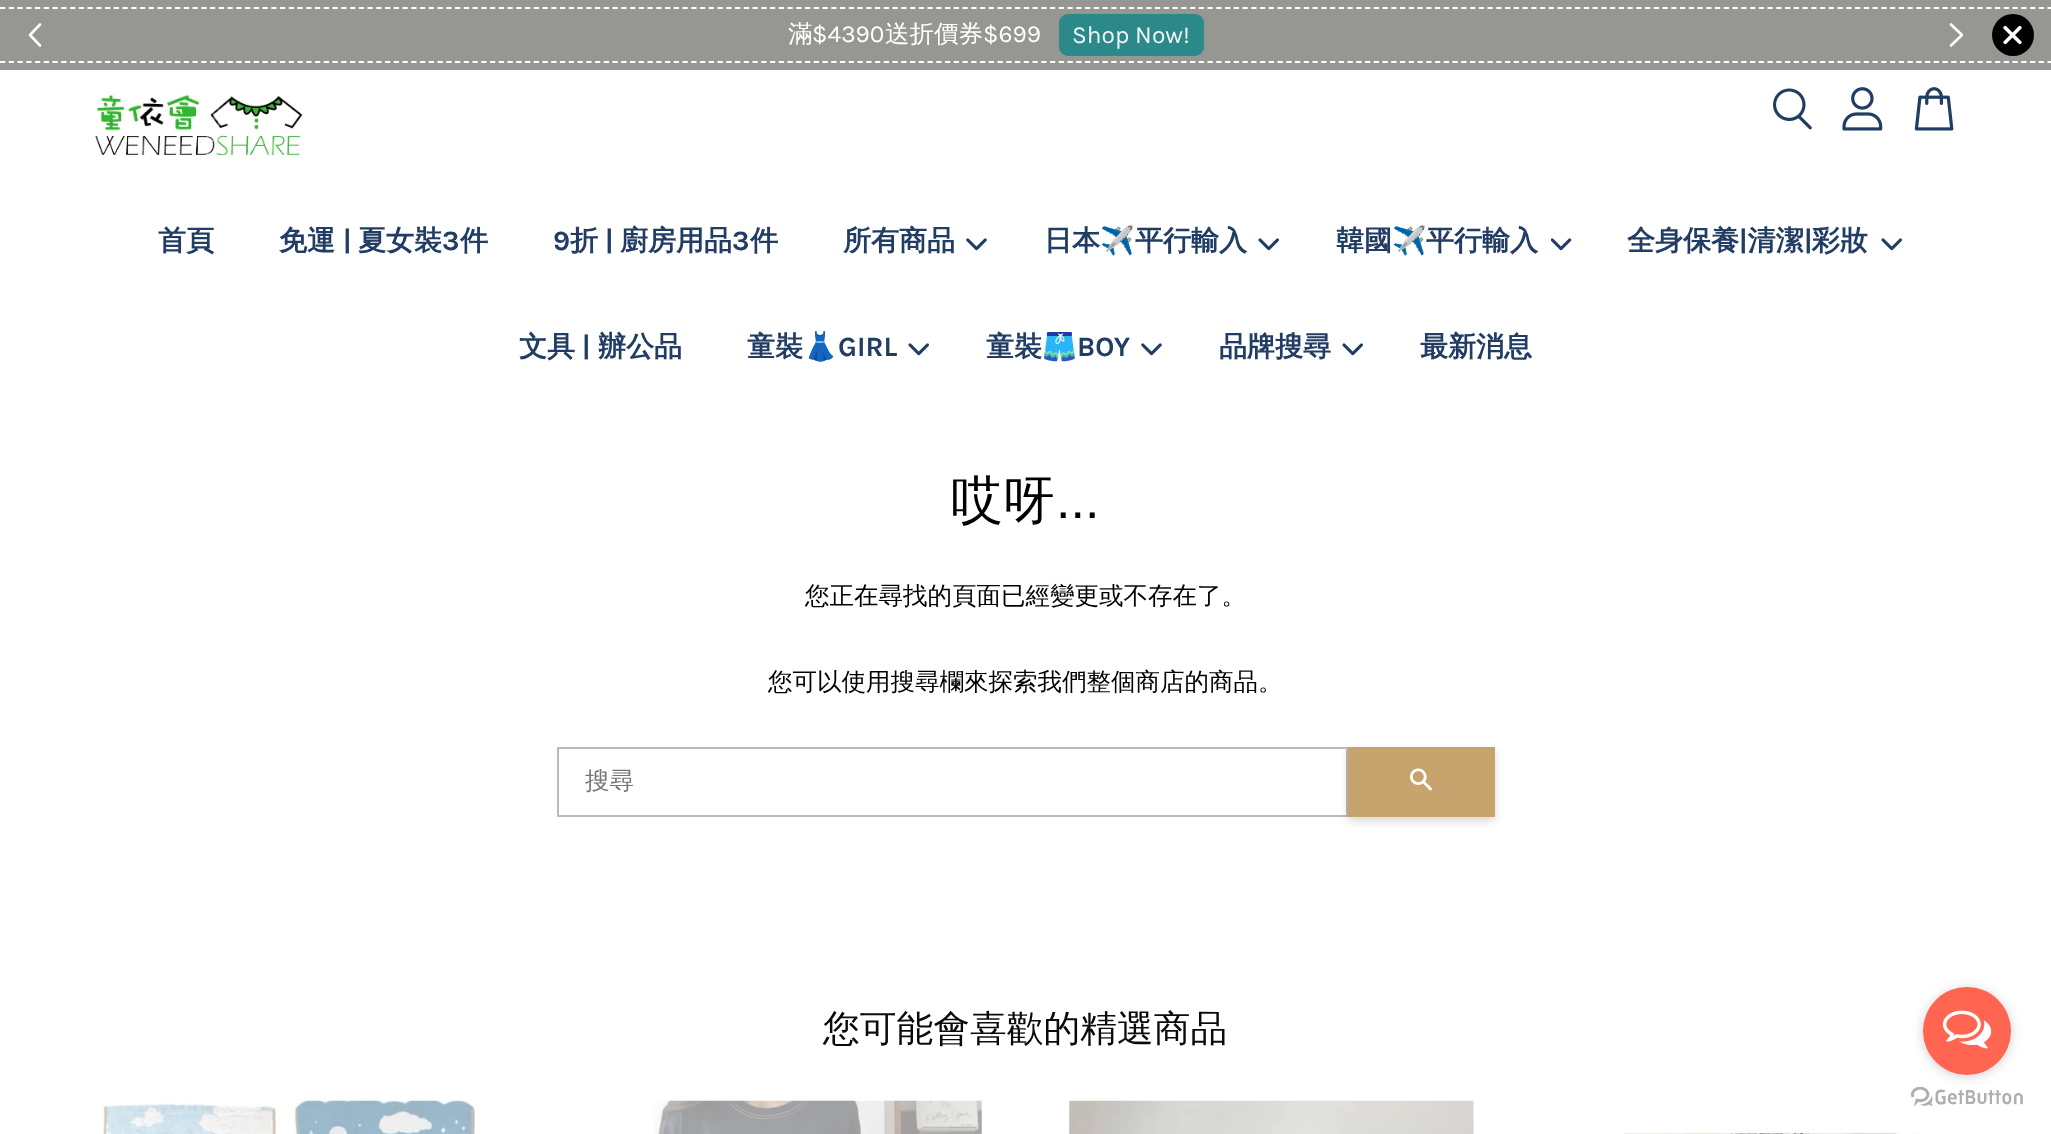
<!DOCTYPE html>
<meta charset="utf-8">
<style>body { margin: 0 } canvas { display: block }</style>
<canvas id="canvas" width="2051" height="1134"></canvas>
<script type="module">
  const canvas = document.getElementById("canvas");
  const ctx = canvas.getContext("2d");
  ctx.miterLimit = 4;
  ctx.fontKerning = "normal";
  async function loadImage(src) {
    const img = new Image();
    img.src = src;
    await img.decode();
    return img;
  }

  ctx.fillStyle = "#ffffff";
  ctx.fillRect(0, 0, 2051, 1134);
  ctx.fillStyle = "#969693";
  ctx.fillRect(0, 0, 2051, 70);
  ctx.beginPath();
  ctx.moveTo(0, 8);
  ctx.lineTo(2051, 8);
  ctx.strokeStyle = "#ffffff";
  ctx.lineWidth = 1.8;
  ctx.setLineDash([5.25, 3.5]);
  ctx.stroke();
  ctx.beginPath();
  ctx.moveTo(0, 62);
  ctx.lineTo(2051, 62);
  ctx.stroke();
  ctx.beginPath();
  ctx.moveTo(40, 24.5);
  ctx.lineTo(30, 35);
  ctx.lineTo(40, 45.5);
  ctx.lineWidth = 2.6;
  ctx.lineCap = "round";
  ctx.lineJoin = "round";
  ctx.setLineDash([]);
  ctx.stroke();
  ctx.font = "500 24.5px WenQuanYi Zen Hei";
  ctx.fillStyle = "#ffffff";
  ctx.fillText("滿", 788, 42);
  ctx.font = "24.5px Karla";
  ctx.fillText("$4390", 812, 42);
  ctx.font = "500 24.5px WenQuanYi Zen Hei";
  ctx.fillText("送折價券", 885, 42);
  ctx.font = "24.5px Karla";
  ctx.fillText("$699", 983, 42);
  ctx.fillStyle = "#2c898a";
  ctx.beginPath();
  ctx.roundRect(1059, 14, 145, 42, 9);
  ctx.fill();
  ctx.fillStyle = "#f1f5f8";
  ctx.fillText("Shop Now!", 1072, 43);
  ctx.beginPath();
  ctx.moveTo(1951, 24.5);
  ctx.lineTo(1962, 35);
  ctx.lineTo(1951, 45.5);
  ctx.stroke();
  ctx.fillStyle = "#000000";
  ctx.beginPath();
  ctx.arc(2013, 35, 21, 0, Math.PI * 2);
  ctx.fill();
  ctx.fillStyle = "#ffffff";
  ctx.beginPath();
  ctx.moveTo(2021, 26.5);
  ctx.bezierCurveTo(2022, 27, 2022, 28, 2021, 29);
  ctx.lineTo(2006.5, 43.5);
  ctx.bezierCurveTo(2005.5, 44.5, 2004.5, 44.5, 2004, 43.5);
  ctx.bezierCurveTo(2003, 43, 2003, 42, 2004, 41);
  ctx.lineTo(2018.5, 26.5);
  ctx.bezierCurveTo(2019.5, 25.5, 2020.5, 25.5, 2021, 26.5);
  ctx.closePath();
  ctx.fill();
  ctx.beginPath();
  ctx.moveTo(2004, 26.5);
  ctx.bezierCurveTo(2004.5, 25.5, 2005.5, 25.5, 2006.5, 26.5);
  ctx.lineTo(2021, 41);
  ctx.bezierCurveTo(2022, 42, 2022, 43, 2021, 43.5);
  ctx.bezierCurveTo(2020.5, 44.5, 2019.5, 44.5, 2018.5, 43.5);
  ctx.lineTo(2004, 29);
  ctx.bezierCurveTo(2003, 28, 2003, 27, 2004, 26.5);
  ctx.closePath();
  ctx.fill();
  ctx.drawImage(await loadImage("img1.png"), 95, 94, 208, 63);
  ctx.drawImage(await loadImage("img2.png"), 1773, 88, 39, 42);
  ctx.drawImage(await loadImage("img3.png"), 1842, 87, 41, 44);
  ctx.drawImage(await loadImage("img4.png"), 1914, 87, 40, 44);
  ctx.font = "bold 28px WenQuanYi Zen Hei";
  ctx.fillStyle = "#213d63";
  ctx.fillText("首頁", 158, 250);
  ctx.fillText("免運", 279, 250);
  ctx.font = "bold 28px Karla";
  ctx.fillText("|", 343, 250);
  ctx.font = "bold 28px WenQuanYi Zen Hei";
  ctx.fillText("夏女裝", 358, 250);
  ctx.font = "bold 28px Karla";
  ctx.fillText("3", 442, 250);
  ctx.font = "bold 28px WenQuanYi Zen Hei";
  ctx.fillText("件", 460, 250);
  ctx.font = "bold 28px Karla";
  ctx.fillText("9", 553, 250);
  ctx.font = "bold 28px WenQuanYi Zen Hei";
  ctx.fillText("折", 570, 250);
  ctx.font = "bold 28px Karla";
  ctx.fillText("|", 605, 250);
  ctx.font = "bold 28px WenQuanYi Zen Hei";
  ctx.fillText("廚房用品", 620, 250);
  ctx.font = "bold 28px Karla";
  ctx.fillText("3", 732, 250);
  ctx.font = "bold 28px WenQuanYi Zen Hei";
  ctx.fillText("件", 750, 250);
  ctx.fillText("所有商品", 843, 250);
  ctx.drawImage(await loadImage("img5.png"), 966, 238, 21, 13);
  ctx.fillText("日本", 1044, 250);
  ctx.font = "bold 28px Noto Color Emoji";
  ctx.fillText("✈️", 1100, 250);
  ctx.font = "bold 28px WenQuanYi Zen Hei";
  ctx.fillText("平行輸入", 1135, 250);
  ctx.drawImage(await loadImage("img6.png"), 1258, 238, 21, 13);
  ctx.fillText("韓國", 1336, 250);
  ctx.font = "bold 28px Noto Color Emoji";
  ctx.fillText("✈️", 1392, 250);
  ctx.font = "bold 28px WenQuanYi Zen Hei";
  ctx.fillText("平行輸入", 1426, 250);
  ctx.drawImage(await loadImage("img7.png"), 1551, 238, 21, 13);
  ctx.fillText("全身保養 清潔 彩妝", 1627, 250);
  ctx.font = "bold 28px Karla";
  ctx.fillText("|", 1739, 250);
  ctx.fillText("|", 1804, 250);
  ctx.drawImage(await loadImage("img6.png"), 1881, 238, 21, 13);
  ctx.font = "bold 28px WenQuanYi Zen Hei";
  ctx.fillText("文具", 519, 356);
  ctx.font = "bold 28px Karla";
  ctx.fillText("|", 582, 356);
  ctx.font = "bold 28px WenQuanYi Zen Hei";
  ctx.fillText("辦公品", 598, 356);
  ctx.fillText("童裝", 747, 356);
  ctx.font = "bold 28px Noto Color Emoji";
  ctx.fillText("👗", 803, 356);
  ctx.font = "bold 28px Karla";
  ctx.fillText("GIRL", 838, 356);
  ctx.drawImage(await loadImage("img6.png"), 908, 343, 21, 13);
  ctx.font = "bold 28px WenQuanYi Zen Hei";
  ctx.fillText("童裝", 986, 356);
  ctx.font = "bold 28px Noto Color Emoji";
  ctx.fillText("🩳", 1042, 356);
  ctx.font = "bold 28px Karla";
  ctx.fillText("BOY", 1077, 356);
  ctx.drawImage(await loadImage("img5.png"), 1141, 343, 21, 13);
  ctx.font = "bold 28px WenQuanYi Zen Hei";
  ctx.fillText("品牌搜尋", 1219, 356);
  ctx.drawImage(await loadImage("img6.png"), 1342, 343, 21, 13);
  ctx.fillText("最新消息", 1420, 356);
  ctx.font = "500 52px WenQuanYi Zen Hei";
  ctx.fillStyle = "#000000";
  ctx.fillText("哎呀", 951, 518);
  ctx.font = "52px Liberation Sans";
  ctx.fillText("...", 1056, 518);
  ctx.font = "500 24.5px WenQuanYi Zen Hei";
  ctx.fillText("您正在尋找的頁面已經變更或不存在了。", 805, 604);
  ctx.fillText("您可以使用搜尋欄來探索我們整個商店的商品。", 768, 690);
  ctx.strokeStyle = "#beb8b8";
  ctx.lineWidth = 2;
  ctx.lineJoin = "miter";
  ctx.strokeRect(558, 748, 789, 68);
  ctx.fillStyle = "#757575";
  ctx.fillText("搜尋", 585, 789);
  ctx.save();
  ctx.beginPath();
  ctx.moveTo(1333, 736);
  ctx.lineTo(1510, 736);
  ctx.lineTo(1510, 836);
  ctx.lineTo(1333, 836);
  ctx.closePath();
  ctx.moveTo(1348, 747);
  ctx.lineTo(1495, 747);
  ctx.lineTo(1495, 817);
  ctx.lineTo(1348, 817);
  ctx.closePath();
  ctx.clip("evenodd");
  ctx.fillStyle = "rgba(0, 0, 0, 0.15)";
  ctx.filter = "blur(4.5px)";
  ctx.beginPath();
  ctx.rect(1348, 751, 147, 70);
  ctx.fill();
  ctx.filter = "none";
  ctx.restore();
  ctx.fillStyle = "rgba(187, 144, 77, 0.82)";
  ctx.fillRect(1348, 747, 147, 70);
  ctx.drawImage(await loadImage("img8.png"), 1410, 768, 22, 23);
  ctx.font = "500 36.75px WenQuanYi Zen Hei";
  ctx.fillStyle = "#0a0a0a";
  ctx.fillText("您可能會喜歡的精選商品", 823, 1041);
  ctx.drawImage(await loadImage("img9.png"), 103, 1100, 373, 34);
  ctx.drawImage(await loadImage("img10.png"), 655, 1100, 327, 34);
  ctx.drawImage(await loadImage("img11.png"), 1069, 1100, 405, 34);
  ctx.drawImage(await loadImage("img12.png"), 1623, 1131, 298, 3);
  ctx.drawImage(await loadImage("img14.png"), 1911, 1087, 112, 19);
  ctx.fillStyle = "rgba(136, 136, 136, 0.4)";
  ctx.filter = "blur(6px)";
  ctx.beginPath();
  ctx.roundRect(1923, 989, 88, 87, 43.5);
  ctx.fill();
  ctx.filter = "none";
  ctx.fillStyle = "#ff6550";
  ctx.beginPath();
  ctx.arc(1967, 1031, 44, 0, Math.PI * 2);
  ctx.fill();
  ctx.drawImage(await loadImage("img13.png"), 1942, 1010, 50, 39);
</script>
